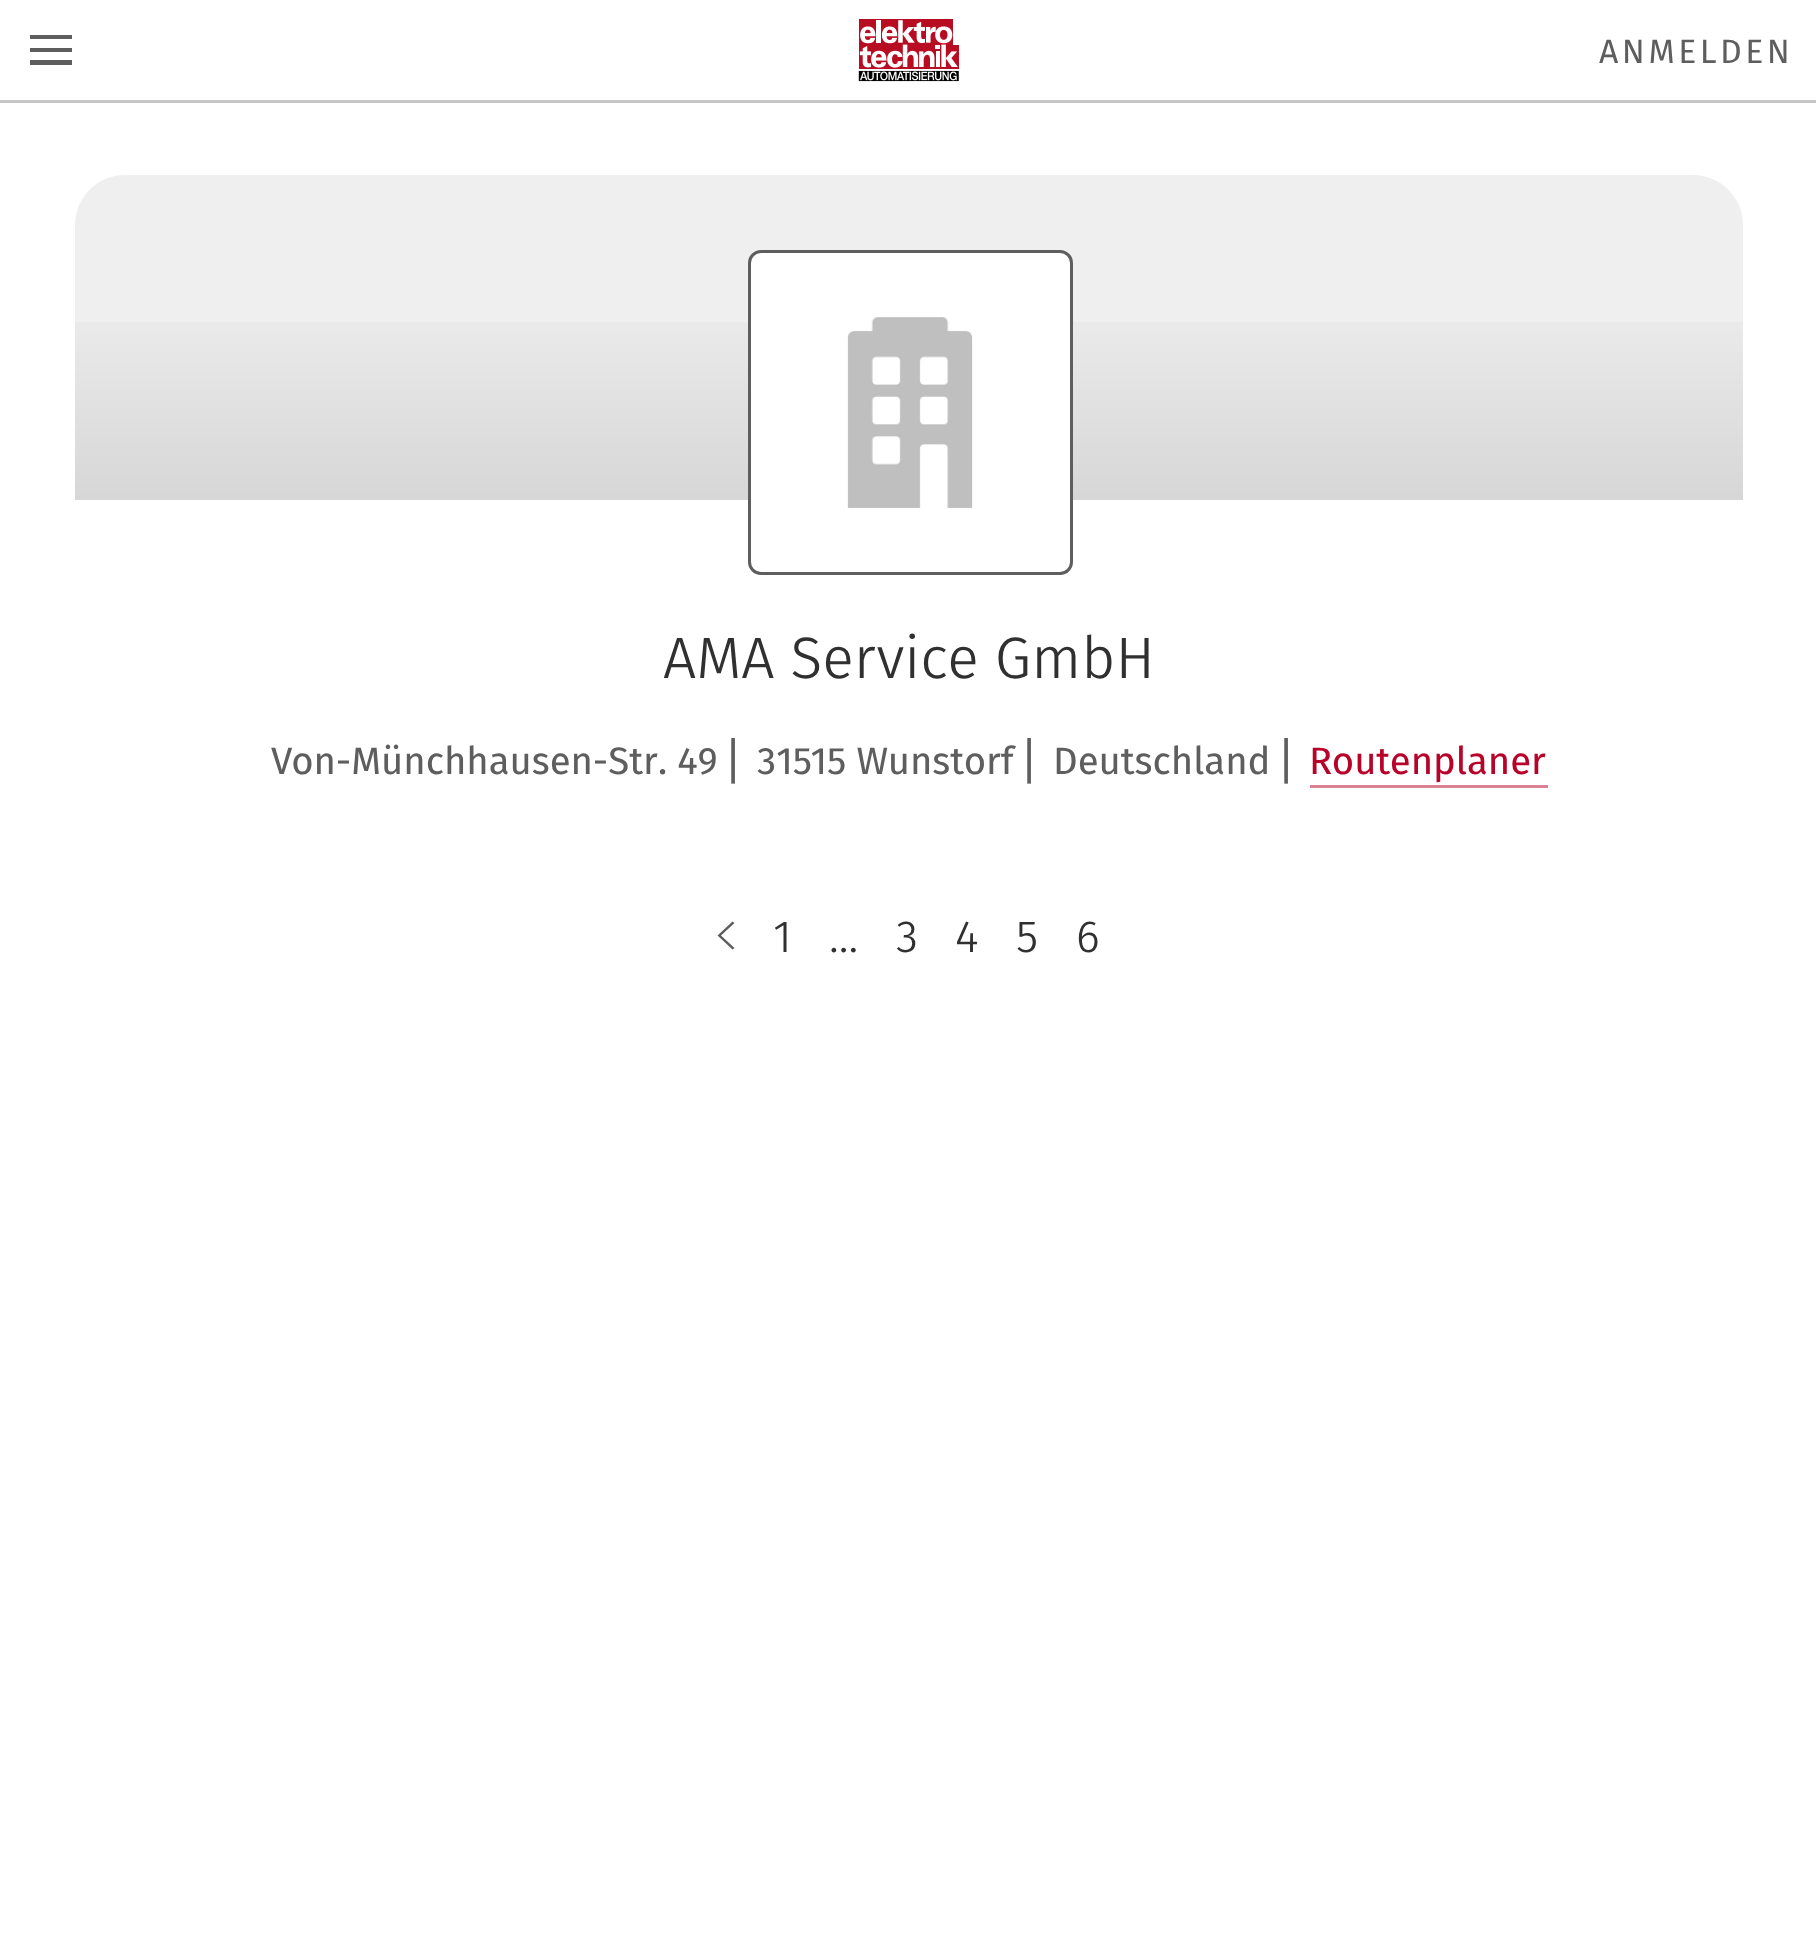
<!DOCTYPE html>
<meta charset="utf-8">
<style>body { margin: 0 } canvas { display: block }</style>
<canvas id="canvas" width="1816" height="1955"></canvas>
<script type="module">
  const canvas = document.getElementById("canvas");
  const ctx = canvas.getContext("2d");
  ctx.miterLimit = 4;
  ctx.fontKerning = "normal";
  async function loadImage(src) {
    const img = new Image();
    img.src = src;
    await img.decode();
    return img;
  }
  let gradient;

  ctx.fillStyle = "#ffffff";
  ctx.fillRect(0, 0, 1816, 1955);
  ctx.fillStyle = "#c6c6c6";
  ctx.fillRect(0, 100, 1816, 3);
  ctx.fillStyle = "#5e5e5e";
  ctx.beginPath();
  ctx.moveTo(30, 52);
  ctx.lineTo(30, 48);
  ctx.lineTo(72, 48);
  ctx.lineTo(72, 52);
  ctx.closePath();
  ctx.moveTo(30, 39);
  ctx.lineTo(30, 35);
  ctx.lineTo(72, 35);
  ctx.lineTo(72, 39);
  ctx.closePath();
  ctx.moveTo(30, 65);
  ctx.lineTo(30, 60);
  ctx.lineTo(72, 60);
  ctx.lineTo(72, 65);
  ctx.closePath();
  ctx.fill();
  ctx.drawImage(await loadImage("img1.png"), 858, 19, 101, 63);
  ctx.letterSpacing = "3.5px";
  ctx.font = "33.75px 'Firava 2'";
  ctx.fillText("ANMELDEN", 1599, 63);
  ctx.fillStyle = "#efefef";
  ctx.beginPath();
  ctx.roundRect(75, 175, 1668, 325, [50, 50, 0, 0]);
  ctx.fill();
  gradient = ctx.createLinearGradient(909, 500, 909, 175);
  gradient.addColorStop(0, "rgba(0, 0, 0, 0.1)");
  gradient.addColorStop(0.7, "rgba(0, 0, 0, 0)");
  ctx.fillStyle = gradient;
  ctx.fillRect(75, 322, 1668, 178);
  ctx.fillStyle = "#ffffff";
  ctx.beginPath();
  ctx.roundRect(749.5, 251.5, 322, 322, 11.5);
  ctx.fill();
  ctx.strokeStyle = "#5e5e5e";
  ctx.lineWidth = 3;
  ctx.stroke();
  ctx.drawImage(await loadImage("img2.png"), 847, 317, 126, 191);
  ctx.letterSpacing = "0px";
  ctx.font = "300 58.5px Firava";
  ctx.fillStyle = "#303030";
  ctx.fillText("AMA Service GmbH", 663, 678);
  ctx.font = "38.25px Firava";
  ctx.fillStyle = "#5e5e5e";
  ctx.fillText("Von-Münchhausen-Str. 49", 271, 774);
  ctx.font = "38.25px DejaVu Sans";
  ctx.fillText("⎢", 728, 774);
  ctx.font = "38.25px Firava";
  ctx.fillText("31515 Wunstorf", 757, 774);
  ctx.font = "38.25px DejaVu Sans";
  ctx.fillText("⎢", 1024, 774);
  ctx.font = "38.25px Firava";
  ctx.fillText("Deutschland", 1053, 774);
  ctx.font = "38.25px DejaVu Sans";
  ctx.fillText("⎢", 1281, 774);
  ctx.font = "38.25px Firava";
  ctx.fillStyle = "#b8022a";
  ctx.fillText("Routenplaner", 1309, 774);
  ctx.fillStyle = "#dc8195";
  ctx.fillRect(1310, 785, 238, 3);
  ctx.fillStyle = "#5e5e5e";
  ctx.beginPath();
  ctx.moveTo(734.5, 923);
  ctx.lineTo(721, 935.5);
  ctx.lineTo(734.5, 948);
  ctx.lineTo(732.5, 949.5);
  ctx.lineTo(717.5, 935.5);
  ctx.lineTo(732.5, 921.5);
  ctx.closePath();
  ctx.fill();
  ctx.font = "300 45px Firava";
  ctx.fillStyle = "#303030";
  ctx.fillText("1", 773, 952);
  ctx.fillText("...", 829, 952);
  ctx.fillText("3", 896, 952);
  ctx.fillText("4", 955, 952);
  ctx.fillText("5", 1016, 952);
  ctx.fillText("6", 1076, 952);
</script>
